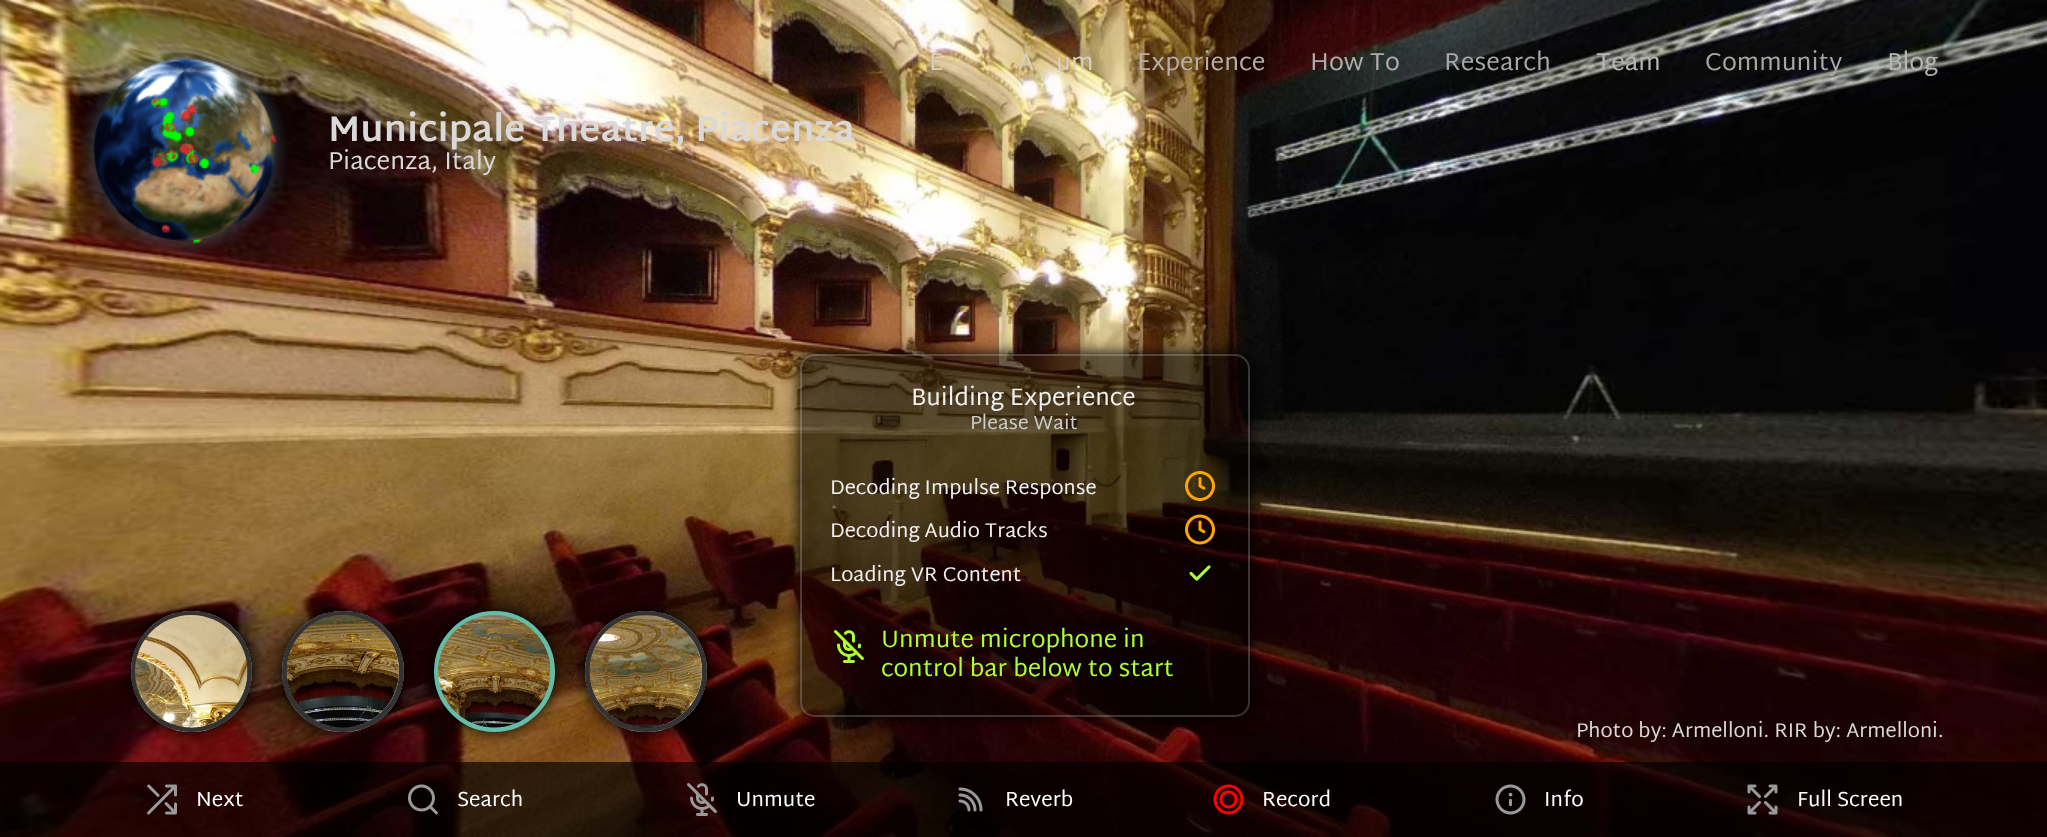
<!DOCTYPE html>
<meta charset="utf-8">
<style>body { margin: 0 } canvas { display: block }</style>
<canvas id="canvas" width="2047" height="837"></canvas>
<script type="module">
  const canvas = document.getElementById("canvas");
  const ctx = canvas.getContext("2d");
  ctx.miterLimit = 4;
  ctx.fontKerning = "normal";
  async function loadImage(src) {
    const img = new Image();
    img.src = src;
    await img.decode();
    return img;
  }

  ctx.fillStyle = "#ffffff";
  ctx.fillRect(0, 0, 2047, 837);
  ctx.drawImage(await loadImage("img1.png"), 0, 0, 2047, 837);
  ctx.font = "24.5px Martel Sans";
  ctx.fillStyle = "#d7cfc1";
  ctx.fillText("E", 929, 70);
  ctx.fillText("A", 1018, 70);
  ctx.fillText("um", 1056, 70);
  ctx.fillStyle = "#b6aea7";
  ctx.fillText("Experience", 1137, 70);
  ctx.fillStyle = "#aeabaa";
  ctx.fillText("How To", 1310, 70);
  ctx.fillStyle = "#a8a7a7";
  ctx.fillText("Research", 1444, 70);
  ctx.fillStyle = "#b6b5b3";
  ctx.fillText("Team", 1596, 70);
  ctx.fillStyle = "#a8a7a7";
  ctx.fillText("Community", 1705, 70);
  ctx.fillStyle = "#b6b5b3";
  ctx.fillText("Blog", 1887, 70);
  ctx.drawImage(await loadImage("img2.png"), 81, 47, 210, 206);
  ctx.font = "bold 36px Martel Sans";
  ctx.fillStyle = "#dad8d8";
  ctx.fillText("Municipale Theatre, Piacenza", 328, 141);
  ctx.font = "24.5px Martel Sans";
  ctx.fillText("Piacenza, Italy", 328, 169);
  ctx.save();
  ctx.beginPath();
  ctx.moveTo(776, 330);
  ctx.lineTo(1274, 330);
  ctx.lineTo(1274, 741);
  ctx.lineTo(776, 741);
  ctx.closePath();
  ctx.moveTo(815, 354);
  ctx.lineTo(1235, 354);
  ctx.bezierCurveTo(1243.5, 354, 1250, 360.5, 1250, 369);
  ctx.lineTo(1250, 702);
  ctx.bezierCurveTo(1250, 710.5, 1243.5, 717, 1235, 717);
  ctx.lineTo(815, 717);
  ctx.bezierCurveTo(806.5, 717, 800, 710.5, 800, 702);
  ctx.lineTo(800, 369);
  ctx.bezierCurveTo(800, 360.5, 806.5, 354, 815, 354);
  ctx.closePath();
  ctx.clip("evenodd");
  ctx.fillStyle = "#000000";
  ctx.filter = "blur(7.5px)";
  ctx.beginPath();
  ctx.roundRect(800, 354, 450, 363, 15);
  ctx.fill();
  ctx.filter = "none";
  ctx.restore();
  ctx.fillStyle = "rgba(0, 0, 0, 0.5)";
  ctx.beginPath();
  ctx.roundRect(800, 354, 450, 363, 15);
  ctx.fill();
  ctx.beginPath();
  ctx.roundRect(801, 355, 448, 361, 14);
  ctx.strokeStyle = "rgba(255, 255, 255, 0.2)";
  ctx.lineWidth = 2;
  ctx.stroke();
  ctx.font = "24px Martel Sans";
  ctx.fillStyle = "#f0f0f0";
  ctx.fillText("Building Experience", 911, 405);
  ctx.font = "19.25px Martel Sans";
  ctx.fillStyle = "#cccccc";
  ctx.fillText("Please Wait", 970, 429);
  ctx.font = "20px Martel Sans";
  ctx.fillStyle = "#f0f0f0";
  ctx.fillText("Decoding Impulse Response", 830, 494);
  ctx.drawImage(await loadImage("img3.png"), 1185, 471, 30, 30);
  ctx.fillText("Decoding Audio Tracks", 830, 537);
  ctx.drawImage(await loadImage("img4.png"), 1185, 514, 30, 31);
  ctx.fillText("Loading VR Content", 830, 581);
  ctx.drawImage(await loadImage("img5.png"), 1189, 565, 22, 16);
  ctx.drawImage(await loadImage("img6.png"), 834, 630, 30, 33);
  ctx.font = "24px Martel Sans";
  ctx.fillStyle = "#adff2f";
  ctx.fillText("Unmute microphone in", 881, 647);
  ctx.fillText("control bar below to start", 881, 676);
  ctx.font = "20px Martel Sans";
  ctx.fillStyle = "#dad8d8";
  ctx.fillText("Photo by: Armelloni. RIR by: Armelloni.", 1576, 737);
  ctx.fillStyle = "#000000";
  ctx.filter = "blur(7.5px)";
  ctx.beginPath();
  ctx.roundRect(131, 611, 121, 121, 60.5);
  ctx.fill();
  ctx.filter = "none";
  ctx.fillStyle = "#ffffff";
  ctx.beginPath();
  ctx.arc(191.5, 671.5, 60.5, 0, Math.PI * 2);
  ctx.fill();
  ctx.beginPath();
  ctx.arc(191.5, 671.5, 58, 0, Math.PI * 2);
  ctx.strokeStyle = "rgba(0, 0, 0, 0.8)";
  ctx.lineWidth = 5;
  ctx.stroke();
  ctx.drawImage(await loadImage("img7.png"), 135, 615, 113, 113);
  ctx.fillStyle = "#000000";
  ctx.filter = "blur(7.5px)";
  ctx.beginPath();
  ctx.roundRect(282, 611, 122, 121, 60.5);
  ctx.fill();
  ctx.filter = "none";
  ctx.fillStyle = "#ffffff";
  ctx.beginPath();
  ctx.roundRect(282, 611, 122, 121, 60.5);
  ctx.fill();
  ctx.beginPath();
  ctx.roundRect(284.5, 613.5, 117, 116, 58);
  ctx.stroke();
  ctx.drawImage(await loadImage("img8.png"), 286, 615, 113, 113);
  ctx.fillStyle = "#000000";
  ctx.filter = "blur(7.5px)";
  ctx.beginPath();
  ctx.roundRect(434, 611, 121, 121, 60.5);
  ctx.fill();
  ctx.filter = "none";
  ctx.beginPath();
  ctx.arc(494.5, 671.5, 58, 0, Math.PI * 2);
  ctx.strokeStyle = "#64bda8";
  ctx.stroke();
  ctx.drawImage(await loadImage("img9.png"), 438, 615, 113, 113);
  ctx.filter = "blur(7.5px)";
  ctx.beginPath();
  ctx.roundRect(585, 611, 122, 121, 60.5);
  ctx.fill();
  ctx.filter = "none";
  ctx.fillStyle = "#ffffff";
  ctx.beginPath();
  ctx.roundRect(585, 611, 122, 121, 60.5);
  ctx.fill();
  ctx.beginPath();
  ctx.roundRect(587.5, 613.5, 117, 116, 58);
  ctx.strokeStyle = "rgba(0, 0, 0, 0.8)";
  ctx.stroke();
  ctx.drawImage(await loadImage("img10.png"), 589, 615, 113, 113);
  ctx.fillStyle = "rgba(0, 0, 0, 0.65)";
  ctx.fillRect(0, 762, 2047, 75);
  ctx.drawImage(await loadImage("img11.png"), 147, 784, 30, 31);
  ctx.font = "20.5px Martel Sans";
  ctx.fillStyle = "#ffffff";
  ctx.fillText("Next", 196, 806);
  ctx.drawImage(await loadImage("img12.png"), 408, 784, 30, 31);
  ctx.fillText("Search", 457, 806);
  ctx.drawImage(await loadImage("img13.png"), 687, 783, 30, 33);
  ctx.fillText("Unmute", 736, 806);
  ctx.drawImage(await loadImage("img14.png"), 958, 787, 25, 25);
  ctx.fillText("Reverb", 1005, 806);
  ctx.drawImage(await loadImage("img15.png"), 1213, 784, 31, 31);
  ctx.fillText("Record", 1262, 806);
  ctx.drawImage(await loadImage("img16.png"), 1495, 784, 31, 31);
  ctx.fillText("Info", 1544, 806);
  ctx.drawImage(await loadImage("img17.png"), 1747, 784, 31, 31);
  ctx.fillText("Full Screen", 1797, 806);
</script>
